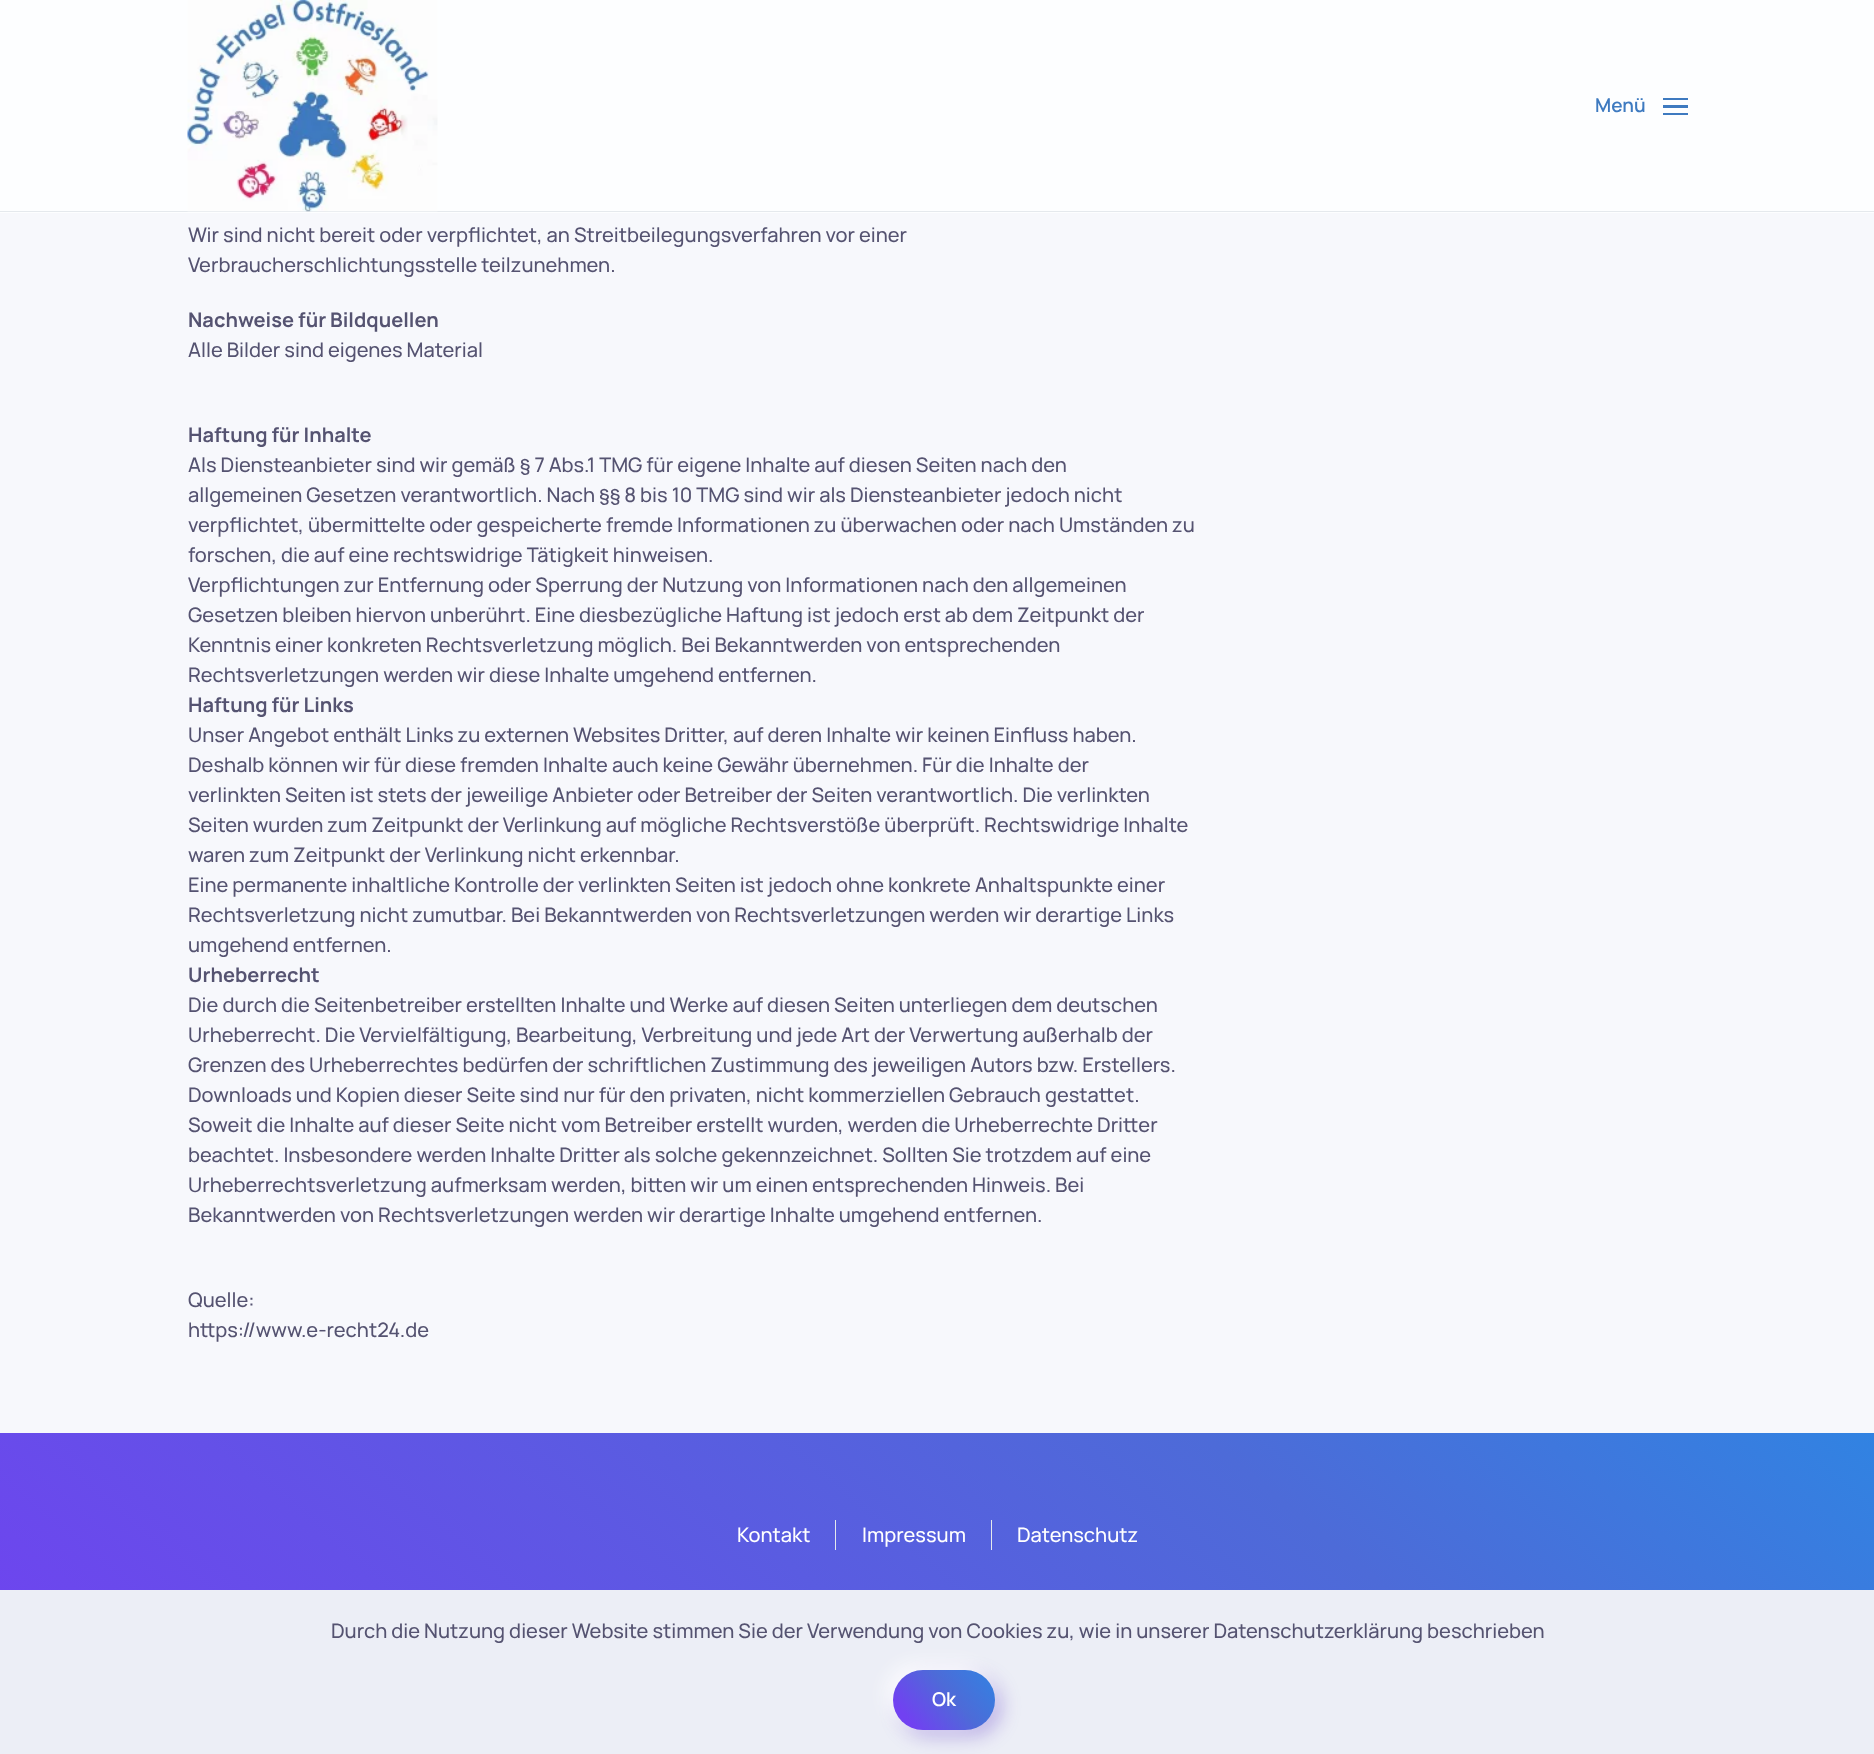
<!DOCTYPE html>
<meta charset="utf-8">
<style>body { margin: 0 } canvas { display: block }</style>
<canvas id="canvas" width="1874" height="1754"></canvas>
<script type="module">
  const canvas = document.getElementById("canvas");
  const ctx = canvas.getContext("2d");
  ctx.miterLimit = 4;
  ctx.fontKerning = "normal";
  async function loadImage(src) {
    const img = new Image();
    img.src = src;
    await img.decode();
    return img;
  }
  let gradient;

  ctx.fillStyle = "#f7f8fc";
  ctx.fillRect(0, 0, 1874, 1754);
  ctx.fillStyle = "rgba(255, 255, 255, 0.77)";
  ctx.fillRect(0, 0, 1874, 213);
  ctx.fillStyle = "#e5e9ed";
  ctx.fillRect(0, 211, 1874, 1);
  ctx.drawImage(await loadImage("img1.png"), 187, 0, 251, 212);
  ctx.font = "200 19px 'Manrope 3'";
  ctx.fillStyle = "#3e7ac0";
  ctx.fillText("Menü", 1595, 112);
  ctx.fillRect(1663, 98, 25, 2);
  ctx.fillRect(1663, 105, 25, 3);
  ctx.fillRect(1663, 113, 25, 2);
  ctx.font = "200 20px Manrope";
  ctx.fillStyle = "#555371";
  ctx.fillText("Wir sind nicht bereit oder verpflichtet, an Streitbeilegungsverfahren vor einer", 188, 242);
  ctx.fillText("Verbraucherschlichtungsstelle teilzunehmen.", 188, 272);
  ctx.font = "200 20px 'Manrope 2'";
  ctx.fillText("Nachweise für Bildquellen", 188, 327);
  ctx.font = "200 20px Manrope";
  ctx.fillText("Alle Bilder sind eigenes Material", 188, 357);
  ctx.font = "200 20px 'Manrope 2'";
  ctx.fillText("Haftung für Inhalte", 188, 442);
  ctx.font = "200 20px Manrope";
  ctx.fillText("Als Diensteanbieter sind wir gemäß § 7 Abs.1 TMG für eigene Inhalte auf diesen Seiten nach den", 188, 472);
  ctx.fillText("allgemeinen Gesetzen verantwortlich. Nach §§ 8 bis 10 TMG sind wir als Diensteanbieter jedoch nicht", 188, 502);
  ctx.fillText("verpflichtet, übermittelte oder gespeicherte fremde Informationen zu überwachen oder nach Umständen zu", 188, 532);
  ctx.fillText("forschen, die auf eine rechtswidrige Tätigkeit hinweisen.", 188, 562);
  ctx.fillText("Verpflichtungen zur Entfernung oder Sperrung der Nutzung von Informationen nach den allgemeinen", 188, 592);
  ctx.fillText("Gesetzen bleiben hiervon unberührt. Eine diesbezügliche Haftung ist jedoch erst ab dem Zeitpunkt der", 188, 622);
  ctx.fillText("Kenntnis einer konkreten Rechtsverletzung möglich. Bei Bekanntwerden von entsprechenden", 188, 652);
  ctx.fillText("Rechtsverletzungen werden wir diese Inhalte umgehend entfernen.", 188, 682);
  ctx.font = "200 20px 'Manrope 2'";
  ctx.fillText("Haftung für Links", 188, 712);
  ctx.font = "200 20px Manrope";
  ctx.fillText("Unser Angebot enthält Links zu externen Websites Dritter, auf deren Inhalte wir keinen Einfluss haben.", 188, 742);
  ctx.fillText("Deshalb können wir für diese fremden Inhalte auch keine Gewähr übernehmen. Für die Inhalte der", 188, 772);
  ctx.fillText("verlinkten Seiten ist stets der jeweilige Anbieter oder Betreiber der Seiten verantwortlich. Die verlinkten", 188, 802);
  ctx.fillText("Seiten wurden zum Zeitpunkt der Verlinkung auf mögliche Rechtsverstöße überprüft. Rechtswidrige Inhalte", 188, 832);
  ctx.fillText("waren zum Zeitpunkt der Verlinkung nicht erkennbar.", 188, 862);
  ctx.fillText("Eine permanente inhaltliche Kontrolle der verlinkten Seiten ist jedoch ohne konkrete Anhaltspunkte einer", 188, 892);
  ctx.fillText("Rechtsverletzung nicht zumutbar. Bei Bekanntwerden von Rechtsverletzungen werden wir derartige Links", 188, 922);
  ctx.fillText("umgehend entfernen.", 188, 952);
  ctx.font = "200 20px 'Manrope 2'";
  ctx.fillText("Urheberrecht", 188, 982);
  ctx.font = "200 20px Manrope";
  ctx.fillText("Die durch die Seitenbetreiber erstellten Inhalte und Werke auf diesen Seiten unterliegen dem deutschen", 188, 1012);
  ctx.fillText("Urheberrecht. Die Vervielfältigung, Bearbeitung, Verbreitung und jede Art der Verwertung außerhalb der", 188, 1042);
  ctx.fillText("Grenzen des Urheberrechtes bedürfen der schriftlichen Zustimmung des jeweiligen Autors bzw. Erstellers.", 188, 1072);
  ctx.fillText("Downloads und Kopien dieser Seite sind nur für den privaten, nicht kommerziellen Gebrauch gestattet.", 188, 1102);
  ctx.fillText("Soweit die Inhalte auf dieser Seite nicht vom Betreiber erstellt wurden, werden die Urheberrechte Dritter", 188, 1132);
  ctx.fillText("beachtet. Insbesondere werden Inhalte Dritter als solche gekennzeichnet. Sollten Sie trotzdem auf eine", 188, 1162);
  ctx.fillText("Urheberrechtsverletzung aufmerksam werden, bitten wir um einen entsprechenden Hinweis. Bei", 188, 1192);
  ctx.fillText("Bekanntwerden von Rechtsverletzungen werden wir derartige Inhalte umgehend entfernen.", 188, 1222);
  ctx.fillText("Quelle:", 188, 1307);
  ctx.fillText("https://www.e-recht24.de", 188, 1337);
  gradient = ctx.createLinearGradient(473, 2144, 1402, 1036);
  gradient.addColorStop(0, "#7141f1");
  gradient.addColorStop(0.7, "#4d6bd8");
  gradient.addColorStop(1, "#3183e2");
  ctx.fillStyle = gradient;
  ctx.fillRect(0, 1433, 1874, 157);
  ctx.fillStyle = "#ffffff";
  ctx.fillText("Kontakt", 737, 1542);
  ctx.fillStyle = "#e5e9ed";
  ctx.fillRect(835, 1520, 1, 30);
  ctx.fillStyle = "#ffffff";
  ctx.fillText("Impressum", 862, 1542);
  ctx.fillStyle = "#e5e9ed";
  ctx.fillRect(991, 1520, 1, 30);
  ctx.fillStyle = "#ffffff";
  ctx.fillText("Datenschutz", 1017, 1542);
  ctx.fillStyle = "#eceef6";
  ctx.fillRect(0, 1590, 1874, 164);
  ctx.fillStyle = "#555371";
  ctx.fillText("Durch die Nutzung dieser Website stimmen Sie der Verwendung von Cookies zu, wie in unserer Datenschutzerklärung beschrieben", 331, 1638);
  ctx.fillStyle = "rgba(60, 14, 189, 0.3)";
  ctx.filter = "blur(9.5px)";
  ctx.beginPath();
  ctx.roundRect(899, 1676, 102, 60, 30);
  ctx.fill();
  ctx.filter = "none";
  ctx.fillStyle = "rgba(255, 255, 255, 0.9)";
  ctx.filter = "blur(9.5px)";
  ctx.beginPath();
  ctx.roundRect(886, 1664, 103, 60, 30);
  ctx.fill();
  ctx.filter = "none";
  gradient = ctx.createLinearGradient(816, 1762, 969, 1638);
  gradient.addColorStop(0.5, "#7141f1");
  gradient.addColorStop(0.75, "#4d6bd8");
  gradient.addColorStop(1, "#3183e2");
  ctx.fillStyle = gradient;
  ctx.beginPath();
  ctx.roundRect(893, 1670, 102, 60, 30);
  ctx.fill();
  ctx.font = "200 19px 'Manrope 3'";
  ctx.fillStyle = "#ffffff";
  ctx.fillText("Ok", 932, 1706);
</script>
